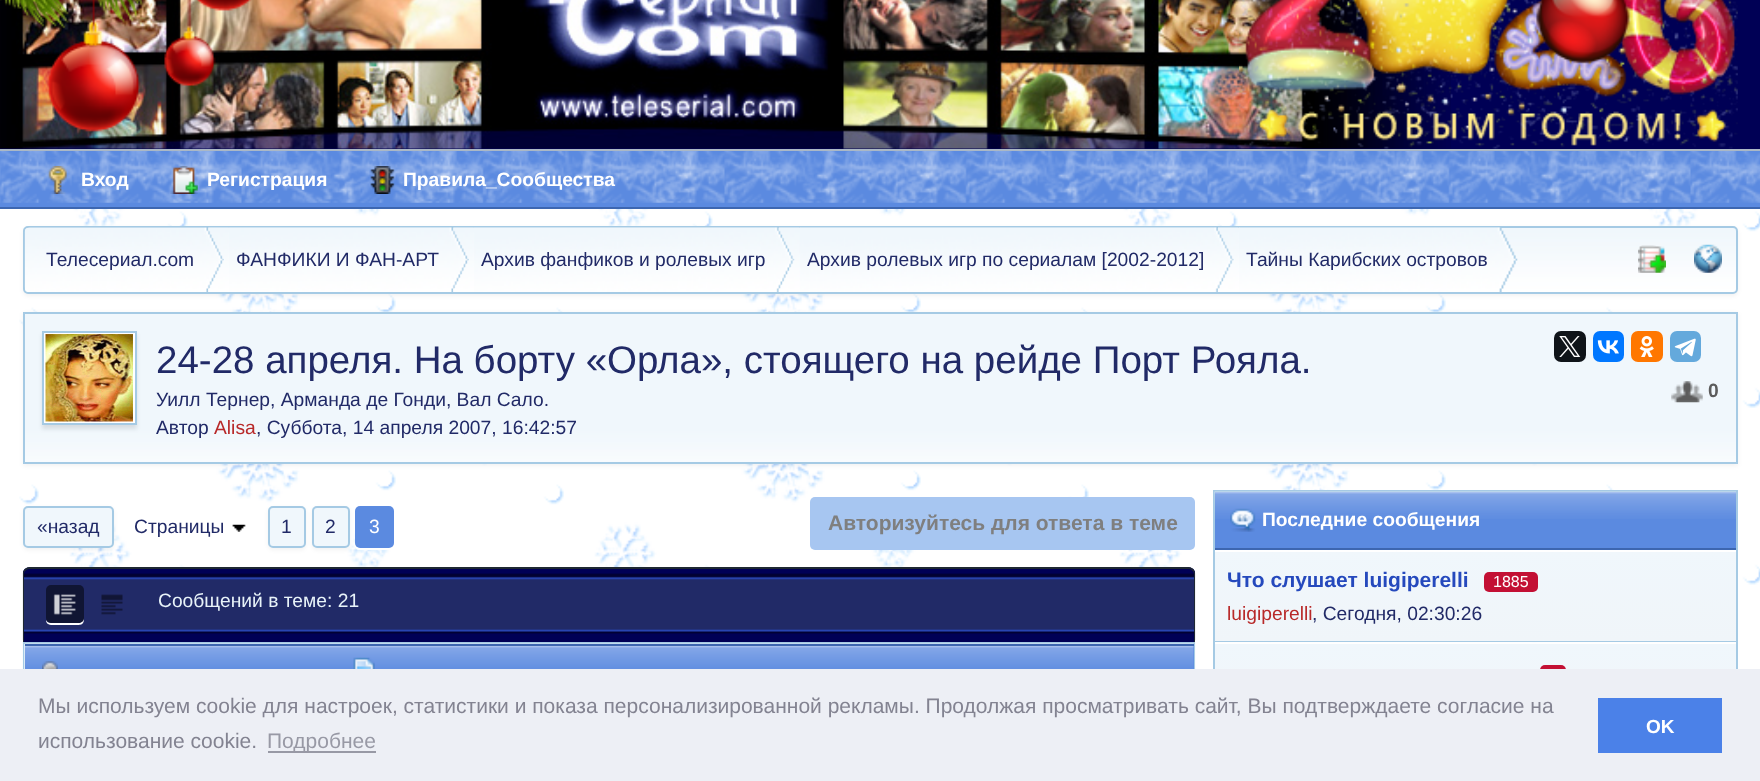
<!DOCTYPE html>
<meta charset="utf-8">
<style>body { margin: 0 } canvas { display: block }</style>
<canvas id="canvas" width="1760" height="781"></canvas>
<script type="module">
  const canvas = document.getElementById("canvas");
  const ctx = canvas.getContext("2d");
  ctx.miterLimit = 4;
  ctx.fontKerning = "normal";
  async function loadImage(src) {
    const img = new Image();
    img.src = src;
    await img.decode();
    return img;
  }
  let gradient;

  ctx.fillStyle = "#ffffff";
  ctx.fillRect(0, 0, 1760, 781);
  ctx.drawImage(await loadImage("img1.png"), 19, 209, 1741, 460);
  ctx.fillStyle = "#000055";
  ctx.fillRect(0, 0, 1760, 149);
  ctx.drawImage(await loadImage("img2.png"), 0, 0, 1451, 149);
  ctx.drawImage(await loadImage("img3.png"), 1239, 0, 499, 149);
  ctx.drawImage(await loadImage("img4.png"), 0, 0, 252, 132);
  ctx.drawImage(await loadImage("img5.png"), 1536, 0, 94, 64);
  ctx.fillStyle = "#5b8ae0";
  ctx.fillRect(0, 151, 1760, 56);
  ctx.drawImage(await loadImage("img6.png"), 0, 151, 1760, 52);
  ctx.fillStyle = "#abb8c5";
  ctx.fillRect(0, 149, 1760, 2);
  ctx.fillStyle = "#3d66b0";
  ctx.fillRect(0, 207, 1760, 2);
  ctx.drawImage(await loadImage("img7.png"), 48, 166, 19, 28);
  ctx.font = "bold 19.25px Liberation Sans";
  ctx.fillStyle = "#ffffff";
  ctx.fillText("Вход", 81, 186);
  ctx.drawImage(await loadImage("img8.png"), 170, 166, 28, 28);
  ctx.fillText("Регистрация", 207, 186);
  ctx.drawImage(await loadImage("img9.png"), 370, 166, 25, 28);
  ctx.fillText("Правила_Сообщества", 403, 186);
  ctx.fillStyle = "rgba(0, 0, 0, 0.05)";
  ctx.filter = "blur(2px)";
  ctx.beginPath();
  ctx.roundRect(23, 228, 1715, 68, 5);
  ctx.fill();
  ctx.filter = "none";
  ctx.drawImage(await loadImage("img10.png"), 23, 227, 1715, 65);
  ctx.beginPath();
  ctx.roundRect(24, 227, 1713, 66, 4);
  ctx.strokeStyle = "#a5cae4";
  ctx.lineWidth = 2;
  ctx.stroke();
  ctx.drawImage(await loadImage("img11.png"), 24, 227, 200, 65);
  ctx.font = "19.25px Liberation Sans";
  ctx.fillStyle = "#212a67";
  ctx.fillText("Телесериал.com", 46, 266);
  ctx.drawImage(await loadImage("img12.png"), 208, 227, 22, 65);
  ctx.drawImage(await loadImage("img13.png"), 229, 227, 240, 65);
  ctx.fillText("ФАНФИКИ И ФАН-АРТ", 236, 266);
  ctx.drawImage(await loadImage("img14.png"), 453, 227, 22, 65);
  ctx.drawImage(await loadImage("img15.png"), 474, 227, 321, 65);
  ctx.fillText("Архив фанфиков и ролевых игр", 481, 266);
  ctx.drawImage(await loadImage("img16.png"), 778, 227, 23, 65);
  ctx.drawImage(await loadImage("img17.png"), 799, 227, 435, 65);
  ctx.fillText("Архив ролевых игр по сериалам [2002-2012]", 807, 266);
  ctx.drawImage(await loadImage("img18.png"), 1218, 227, 22, 65);
  ctx.drawImage(await loadImage("img19.png"), 1239, 227, 279, 65);
  ctx.fillText("Тайны Карибских островов", 1246, 266);
  ctx.drawImage(await loadImage("img20.png"), 1638, 245, 28, 28);
  ctx.drawImage(await loadImage("img21.png"), 1694, 244, 28, 29);
  ctx.fillStyle = "rgba(0, 0, 0, 0.05)";
  ctx.filter = "blur(2px)";
  ctx.beginPath();
  ctx.rect(23, 313, 1715, 153);
  ctx.fill();
  ctx.filter = "none";
  ctx.drawImage(await loadImage("img22.png"), 25, 314, 1711, 148);
  ctx.strokeRect(24, 313, 1713, 150);
  ctx.fillStyle = "rgba(0, 0, 0, 0.1)";
  ctx.filter = "blur(2px)";
  ctx.beginPath();
  ctx.rect(42, 334, 95, 95);
  ctx.fill();
  ctx.filter = "none";
  ctx.fillStyle = "#ffffff";
  ctx.beginPath();
  ctx.rect(43, 332, 93, 92);
  ctx.fill();
  ctx.stroke();
  ctx.drawImage(await loadImage("img23.png"), 45, 334, 88, 88);
  ctx.font = "38.5px Liberation Sans";
  ctx.fillStyle = "#212a67";
  ctx.fillText("24-28 апреля. На борту «Орла», стоящего на рейде Порт Рояла.", 156, 373);
  ctx.fillStyle = "#0f1419";
  ctx.beginPath();
  ctx.roundRect(1554, 331, 32, 31, 7);
  ctx.fill();
  ctx.drawImage(await loadImage("img24.png"), 1559, 336, 22, 21);
  ctx.fillStyle = "#0077ff";
  ctx.beginPath();
  ctx.roundRect(1593, 331, 31, 31, 7);
  ctx.fill();
  ctx.drawImage(await loadImage("img25.png"), 1597, 340, 22, 14);
  ctx.fillStyle = "#ff7700";
  ctx.beginPath();
  ctx.roundRect(1631, 331, 32, 31, 7);
  ctx.fill();
  ctx.drawImage(await loadImage("img26.png"), 1639, 336, 15, 21);
  ctx.fillStyle = "#64a9dc";
  ctx.beginPath();
  ctx.roundRect(1670, 331, 31, 31, 7);
  ctx.fill();
  ctx.drawImage(await loadImage("img27.png"), 1674, 338, 22, 19);
  ctx.drawImage(await loadImage("img28.png"), 1671, 381, 32, 22);
  ctx.font = "bold 19.25px Liberation Sans";
  ctx.fillStyle = "#5c5c5c";
  ctx.fillText("0", 1708, 397);
  ctx.font = "19.25px Liberation Sans";
  ctx.fillStyle = "#212a67";
  ctx.fillText("Уилл Тернер, Арманда де Гонди, Вал Сало.", 156, 406);
  ctx.fillText("Автор", 156, 434);
  ctx.fillStyle = "#b82929";
  ctx.fillText("Alisa", 214, 434);
  ctx.fillStyle = "#212a67";
  ctx.fillText(", Суббота, 14 апреля 2007, 16:42:57", 256, 434);
  ctx.fillStyle = "rgba(0, 0, 0, 0.05)";
  ctx.filter = "blur(2px)";
  ctx.beginPath();
  ctx.roundRect(23, 508, 91, 42, 5);
  ctx.fill();
  ctx.filter = "none";
  ctx.fillStyle = "#f0f7fc";
  ctx.beginPath();
  ctx.roundRect(23, 506, 91, 42, 5);
  ctx.fill();
  ctx.drawImage(await loadImage("img29.png"), 23, 507, 2, 2);
  ctx.beginPath();
  ctx.roundRect(24, 507, 89, 40, 4);
  ctx.stroke();
  ctx.fillStyle = "#212a67";
  ctx.fillText("«назад", 37, 533);
  ctx.fillText("Страницы", 134, 533);
  ctx.drawImage(await loadImage("img30.png"), 232, 524, 14, 8);
  ctx.fillStyle = "rgba(0, 0, 0, 0.05)";
  ctx.filter = "blur(2px)";
  ctx.beginPath();
  ctx.roundRect(268, 508, 38, 42, 5);
  ctx.fill();
  ctx.filter = "none";
  ctx.fillStyle = "#f0f7fc";
  ctx.beginPath();
  ctx.roundRect(268, 506, 38, 42, 5);
  ctx.fill();
  ctx.drawImage(await loadImage("img31.png"), 268, 507, 38, 2);
  ctx.beginPath();
  ctx.roundRect(269, 507, 36, 40, 4);
  ctx.stroke();
  ctx.fillStyle = "#212a67";
  ctx.fillText("1", 281, 533);
  ctx.fillStyle = "rgba(0, 0, 0, 0.05)";
  ctx.filter = "blur(2px)";
  ctx.beginPath();
  ctx.roundRect(312, 508, 38, 42, 5);
  ctx.fill();
  ctx.filter = "none";
  ctx.fillStyle = "#f0f7fc";
  ctx.beginPath();
  ctx.roundRect(312, 506, 38, 42, 5);
  ctx.fill();
  ctx.drawImage(await loadImage("img32.png"), 312, 507, 38, 2);
  ctx.beginPath();
  ctx.roundRect(313, 507, 36, 40, 4);
  ctx.stroke();
  ctx.fillStyle = "#212a67";
  ctx.fillText("2", 325, 533);
  ctx.fillStyle = "#ffffff";
  ctx.beginPath();
  ctx.moveTo(355, 511.5);
  ctx.lineTo(355, 513);
  ctx.lineTo(355, 545);
  ctx.bezierCurveTo(355, 548, 357, 550, 360, 550);
  ctx.lineTo(389, 550);
  ctx.bezierCurveTo(392, 550, 394, 548, 394, 545);
  ctx.lineTo(394, 513);
  ctx.lineTo(394, 511.5);
  ctx.lineTo(394, 542.5);
  ctx.bezierCurveTo(394, 545.5, 391.5, 548, 388.5, 548);
  ctx.lineTo(360.5, 548);
  ctx.bezierCurveTo(357.5, 548, 355, 545.5, 355, 542.5);
  ctx.closePath();
  ctx.fill();
  ctx.fillStyle = "#5b8ae0";
  ctx.beginPath();
  ctx.roundRect(355, 506, 39, 42, 5);
  ctx.fill();
  ctx.fillStyle = "#ffffff";
  ctx.fillText("3", 369, 533);
  ctx.fillStyle = "#a7c6f1";
  ctx.beginPath();
  ctx.roundRect(810, 497, 385, 53, 5);
  ctx.fill();
  ctx.font = "bold 21px Liberation Sans";
  ctx.fillStyle = "#7f7f7f";
  ctx.fillText("Авторизуйтесь для ответа в теме", 828, 530);
  ctx.fillStyle = "#000055";
  ctx.beginPath();
  ctx.roundRect(23, 567, 1172, 75, [7, 7, 0, 0]);
  ctx.fill();
  ctx.drawImage(await loadImage("img33.png"), 22, 568, 1174, 72);
  ctx.fillStyle = "#1e2832";
  ctx.beginPath();
  ctx.moveTo(30, 567);
  ctx.lineTo(1188, 567);
  ctx.bezierCurveTo(1192, 567, 1195, 570, 1195, 574);
  ctx.lineTo(1195, 642);
  ctx.lineTo(23, 642);
  ctx.lineTo(23, 574);
  ctx.bezierCurveTo(23, 570, 26, 567, 30, 567);
  ctx.closePath();
  ctx.moveTo(30, 569);
  ctx.lineTo(1188, 569);
  ctx.bezierCurveTo(1191, 569, 1194, 571, 1194, 574);
  ctx.lineTo(1194, 642);
  ctx.lineTo(24, 642);
  ctx.lineTo(24, 574);
  ctx.bezierCurveTo(24, 571, 27, 569, 30, 569);
  ctx.closePath();
  ctx.fill("evenodd");
  ctx.fillStyle = "#ffffff";
  ctx.beginPath();
  ctx.moveTo(46, 620);
  ctx.bezierCurveTo(46, 625.5, 52, 625, 55.5, 625);
  ctx.lineTo(74.5, 625);
  ctx.bezierCurveTo(81, 625, 84, 625.5, 84, 618);
  ctx.bezierCurveTo(84, 620.5, 81.5, 623, 79, 623);
  ctx.lineTo(51, 623);
  ctx.bezierCurveTo(48.5, 623, 47, 622, 46, 620);
  ctx.closePath();
  ctx.fill();
  ctx.fillStyle = "rgba(0, 0, 0, 0.5)";
  ctx.beginPath();
  ctx.roundRect(46, 585, 38, 38, 5);
  ctx.fill();
  ctx.drawImage(await loadImage("img34.png"), 53, 594, 23, 21);
  ctx.drawImage(await loadImage("img35.png"), 101, 594, 22, 21);
  ctx.font = "19.25px Liberation Sans";
  ctx.fillStyle = "#e8f3f9";
  ctx.fillText("Сообщений в теме: 21", 158, 607);
  ctx.drawImage(await loadImage("img36.png"), 22, 642, 1174, 27);
  ctx.strokeRect(24, 643, 1170, 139);
  ctx.drawImage(await loadImage("img37.png"), 24, 643, 1170, 26);
  ctx.drawImage(await loadImage("img38.png"), 24, 643, 1170, 26);
  ctx.fillStyle = "#5b8ae0";
  ctx.fillRect(25, 646, 1169, 23);
  ctx.drawImage(await loadImage("img39.png"), 24, 645, 1170, 24);
  ctx.fillStyle = "#3d66b0";
  ctx.fillRect(25, 644, 1169, 2);
  ctx.drawImage(await loadImage("img40.png"), 42, 661, 16, 8);
  ctx.drawImage(await loadImage("img41.png"), 353, 657, 22, 12);
  ctx.strokeRect(1214, 491, 523, 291);
  ctx.fillStyle = "#5b8ae0";
  ctx.fillRect(1215, 492, 521, 56);
  ctx.drawImage(await loadImage("img42.png"), 1214, 491, 522, 28);
  ctx.fillStyle = "#3d66b0";
  ctx.fillRect(1215, 548, 521, 2);
  ctx.drawImage(await loadImage("img43.png"), 1230, 508, 26, 24);
  ctx.font = "bold 19.25px Liberation Sans";
  ctx.fillStyle = "#ffffff";
  ctx.fillText("Последние сообщения", 1262, 526);
  gradient = ctx.createLinearGradient(1475, 551, 1475, 641);
  gradient.addColorStop(0, "#f0f7fc");
  gradient.addColorStop(1, "#f0f5f9");
  ctx.fillStyle = gradient;
  ctx.fillRect(1215, 552, 521, 89);
  ctx.fillStyle = "#ffffff";
  ctx.fillRect(1397, 550, 308, 2);
  ctx.fillStyle = "#a5cae4";
  ctx.fillRect(1215, 641, 521, 1);
  ctx.font = "bold 21px Liberation Sans";
  ctx.fillStyle = "#2549bd";
  ctx.fillText("Что слушает luigiperelli", 1227, 587);
  ctx.fillStyle = "#c31034";
  ctx.beginPath();
  ctx.roundRect(1484, 572, 54, 20, 5);
  ctx.fill();
  ctx.font = "16px Liberation Sans";
  ctx.fillStyle = "#ffffff";
  ctx.fillText("1885", 1493, 587);
  ctx.font = "19.25px Liberation Sans";
  ctx.fillStyle = "#b82929";
  ctx.fillText("luigiperelli", 1227, 620);
  ctx.fillStyle = "#212a67";
  ctx.fillText(", Сегодня, 02:30:26", 1312, 620);
  gradient = ctx.createLinearGradient(1475, 644, 1475, 733);
  gradient.addColorStop(0, "#f0f7fc");
  gradient.addColorStop(1, "#f0f5f9");
  ctx.fillStyle = gradient;
  ctx.fillRect(1215, 644, 521, 25);
  ctx.fillStyle = "#ffffff";
  ctx.fillRect(1271, 642, 62, 2);
  ctx.fillStyle = "#c31034";
  ctx.beginPath();
  ctx.roundRect(1540, 665, 26, 19, 5);
  ctx.fill();
  ctx.fillStyle = "#edeff5";
  ctx.fillRect(0, 669, 1760, 112);
  ctx.font = "21px Liberation Sans";
  ctx.fillStyle = "#838391";
  ctx.fillText("Мы используем cookie для настроек, статистики и показа персонализированной рекламы. Продолжая просматривать сайт, Вы подтверждаете согласие на", 38, 713);
  ctx.fillText("использование cookie.", 38, 748);
  ctx.fillStyle = "#9899a5";
  ctx.fillRect(268, 751, 108, 2);
  ctx.fillText("Подробнее", 267, 748);
  ctx.fillStyle = "#4b81e8";
  ctx.fillRect(1598, 698, 124, 55);
  ctx.font = "bold 19px Liberation Sans";
  ctx.fillStyle = "#ffffff";
  ctx.fillText("OK", 1646, 733);
</script>
